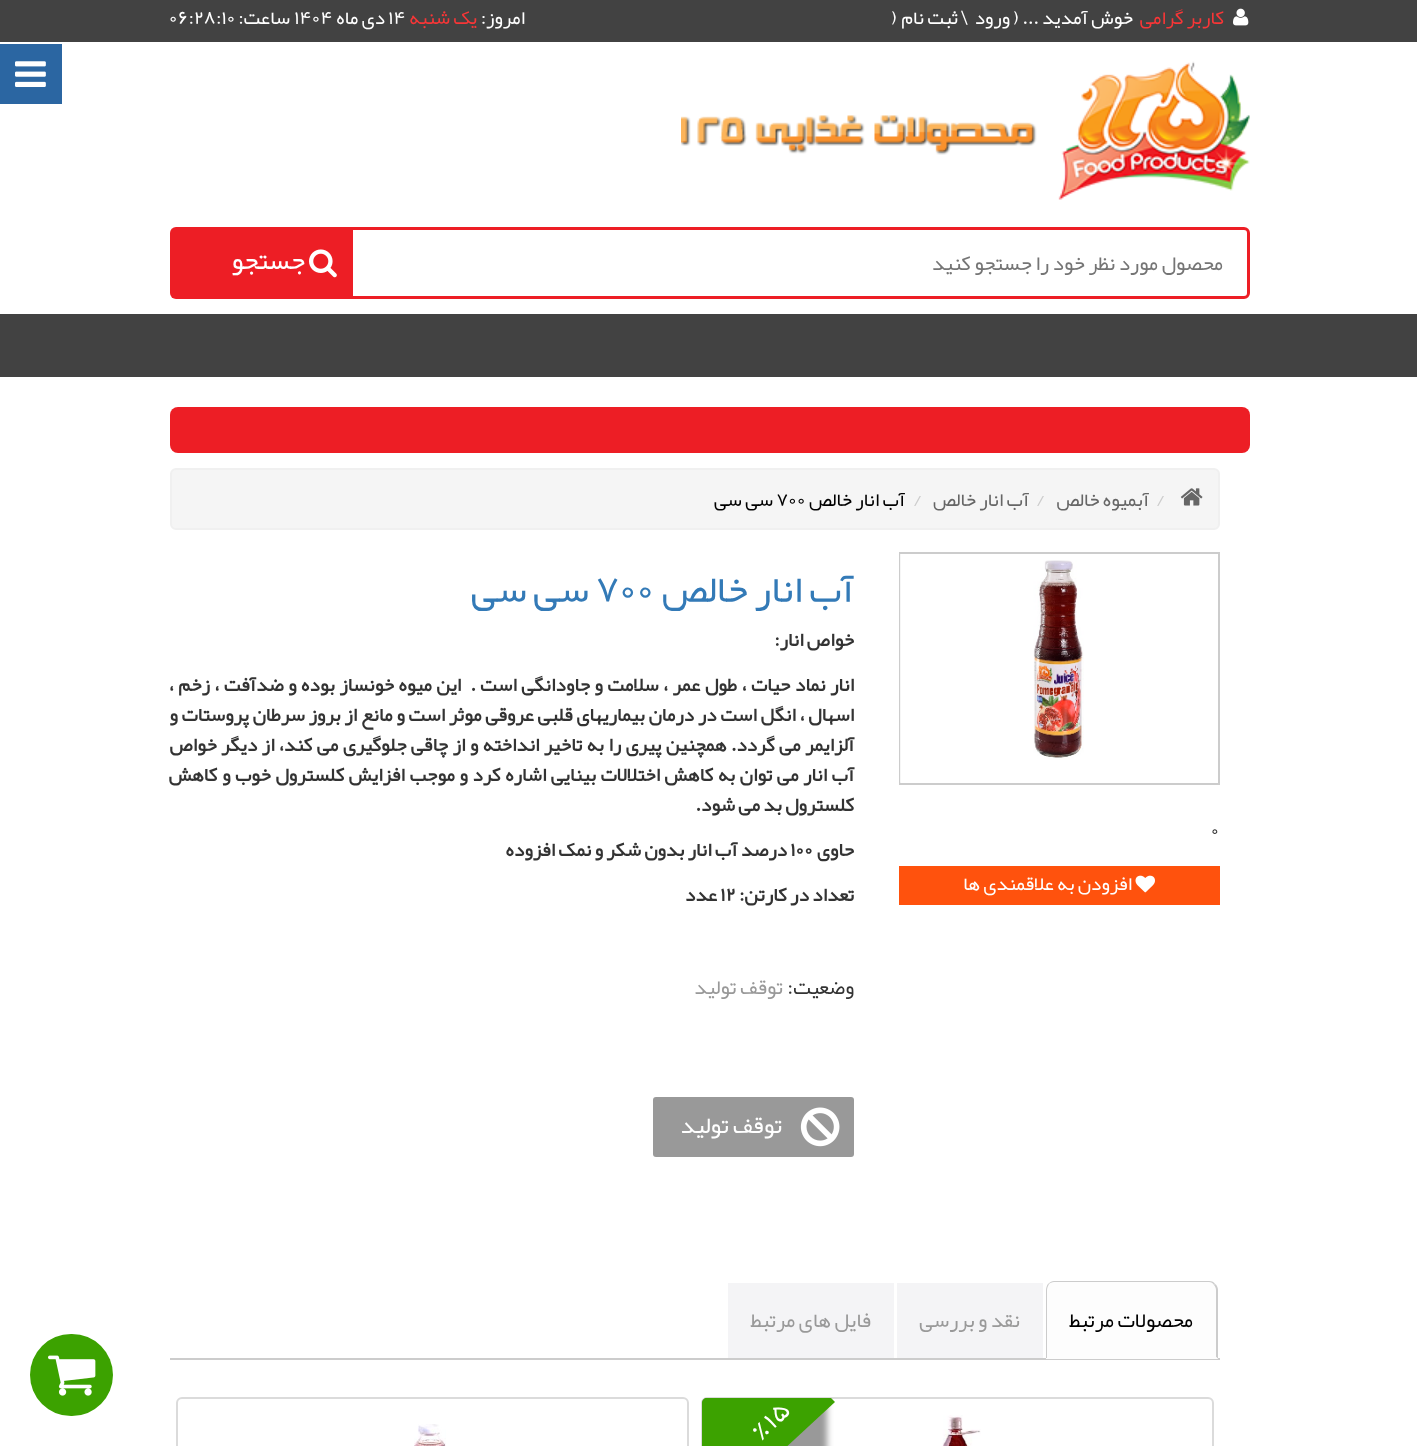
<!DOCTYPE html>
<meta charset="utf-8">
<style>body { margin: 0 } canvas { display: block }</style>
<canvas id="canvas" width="1417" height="1446"></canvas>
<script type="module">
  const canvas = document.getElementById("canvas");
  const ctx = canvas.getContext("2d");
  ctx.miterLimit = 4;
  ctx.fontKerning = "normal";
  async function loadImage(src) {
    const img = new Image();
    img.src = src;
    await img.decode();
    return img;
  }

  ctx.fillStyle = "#ffffff";
  ctx.fillRect(0, 0, 1417, 1446);
  ctx.fillStyle = "#424242";
  ctx.fillRect(0, 0, 1417, 42);
  ctx.drawImage(await loadImage("img1.png"), 1233, 8, 16, 18);
  ctx.direction = "rtl";
  ctx.font = "19.5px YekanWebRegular";
  ctx.fillStyle = "#f73637";
  ctx.fillText("کاربر گرامی", 1224, 24);
  ctx.fillStyle = "#ffffff";
  ctx.fillText("خوش آمدید ... (", 1133, 24);
  ctx.fillText("ورود", 1010, 24);
  ctx.direction = "ltr";
  ctx.fillText("\\", 961, 24);
  ctx.direction = "rtl";
  ctx.fillText("ثبت‌ نام", 958, 24);
  ctx.direction = "ltr";
  ctx.fillText(")", 891, 24);
  ctx.direction = "rtl";
  ctx.fillText("امروز:", 525, 24);
  ctx.fillStyle = "#f73637";
  ctx.fillText("یک شنبه", 477, 24);
  ctx.direction = "ltr";
  ctx.fillStyle = "#ffffff";
  ctx.fillText("14", 388, 24);
  ctx.direction = "rtl";
  ctx.fillText("دی ماه", 385, 24);
  ctx.direction = "ltr";
  ctx.fillText("1404", 294, 24);
  ctx.direction = "rtl";
  ctx.fillText("ساعت:", 290, 24);
  ctx.direction = "ltr";
  ctx.fillText("06:28:10", 169, 24);
  ctx.drawImage(await loadImage("img2.png"), 681, 61, 569, 139);
  ctx.beginPath();
  ctx.roundRect(351.5, 228.5, 897, 69, [0, 4.5, 4.5, 0]);
  ctx.strokeStyle = "#ed1e25";
  ctx.lineWidth = 3;
  ctx.stroke();
  ctx.direction = "rtl";
  ctx.font = "21px YekanWebRegular";
  ctx.fillStyle = "#757575";
  ctx.fillText("محصول مورد نظر خود را جستجو کنید", 1223, 270);
  ctx.fillStyle = "#ed1e25";
  ctx.beginPath();
  ctx.roundRect(170, 227, 180, 72, [6, 0, 0, 6]);
  ctx.fill();
  ctx.drawImage(await loadImage("img3.png"), 309, 249, 28, 29);
  ctx.font = "27px YekanWebRegular";
  ctx.fillStyle = "#ffffff";
  ctx.fillText("جستجو", 305, 269);
  ctx.fillStyle = "#424242";
  ctx.fillRect(0, 314, 1417, 63);
  ctx.fillStyle = "#2b66a2";
  ctx.fillRect(0, 44, 62, 60);
  ctx.drawImage(await loadImage("img4.png"), 15, 61, 31, 26);
  ctx.fillStyle = "#ed1e25";
  ctx.beginPath();
  ctx.roundRect(170, 407, 1080, 46, 8);
  ctx.fill();
  ctx.fillStyle = "#f5f5f5";
  ctx.beginPath();
  ctx.roundRect(171, 469, 1048, 60, 5);
  ctx.fill();
  ctx.strokeStyle = "#f0f0f0";
  ctx.lineWidth = 2;
  ctx.stroke();
  ctx.drawImage(await loadImage("img5.png"), 1180, 488, 23, 18);
  ctx.direction = "ltr";
  ctx.font = "21px YekanWebRegular";
  ctx.fillStyle = "#cccccc";
  ctx.fillText("/", 1156, 506);
  ctx.direction = "rtl";
  ctx.font = "19.5px YekanWebRegular";
  ctx.fillStyle = "#666666";
  ctx.fillText("آبمیوه خالص", 1149, 506);
  ctx.direction = "ltr";
  ctx.font = "21px YekanWebRegular";
  ctx.fillStyle = "#cccccc";
  ctx.fillText("/", 1036, 506);
  ctx.direction = "rtl";
  ctx.font = "19.5px YekanWebRegular";
  ctx.fillStyle = "#666666";
  ctx.fillText("آب انار خالص", 1029, 506);
  ctx.direction = "ltr";
  ctx.font = "21px YekanWebRegular";
  ctx.fillStyle = "#cccccc";
  ctx.fillText("/", 913, 506);
  ctx.direction = "rtl";
  ctx.font = "19.5px YekanWebRegular";
  ctx.fillStyle = "#000000";
  ctx.fillText("آب انار خالص", 905, 506);
  ctx.direction = "ltr";
  ctx.fillText("700", 776, 506);
  ctx.direction = "rtl";
  ctx.fillText("سی سی", 773, 506);
  ctx.strokeStyle = "#cccccc";
  ctx.strokeRect(900, 553, 319, 231);
  ctx.drawImage(await loadImage("img6.png"), 900, 554, 184, 229);
  ctx.direction = "ltr";
  ctx.font = "18px YekanWebRegular";
  ctx.fillStyle = "#333333";
  ctx.fillText("۰", 1211, 836);
  ctx.fillStyle = "#ff520d";
  ctx.fillRect(899, 866, 321, 39);
  ctx.drawImage(await loadImage("img7.png"), 1135, 875, 20, 18);
  ctx.direction = "rtl";
  ctx.font = "19.5px YekanWebRegular";
  ctx.fillStyle = "#ffffff";
  ctx.fillText("افزودن به علاقمندی ها", 1132, 890);
  ctx.font = "39px YekanWebRegular";
  ctx.fillStyle = "#337ab7";
  ctx.fillText("آب انار خالص", 854, 602);
  ctx.direction = "ltr";
  ctx.fillText("700", 595, 602);
  ctx.direction = "rtl";
  ctx.fillText("سی سی", 589, 602);
  ctx.font = "bold 19.5px YekanWebRegular";
  ctx.fillStyle = "#333333";
  ctx.fillText("خواص انار:", 854, 646);
  ctx.wordSpacing = "1.2px";
  ctx.fillText("انار نماد حیات ، طول عمر ، سلامت و جاودانگی است .  این میوه خونساز بوده و ضدآفت ، زخم ،", 854, 691);
  ctx.wordSpacing = "0.4px";
  ctx.fillText("اسهال ، انگل است در درمان بیماریهای قلبی عروقی موثر است و مانع از بروز سرطان پروستات و", 854, 721);
  ctx.wordSpacing = "1.1px";
  ctx.fillText("آلزایمر می گردد. همچنین پیری را به تاخیر انداخته و از چاقی جلوگیری می کند، از دیگر خواص", 854, 751);
  ctx.wordSpacing = "1.25px";
  ctx.fillText("آب انار می توان به کاهش اختلالات بینایی اشاره کرد و موجب افزایش کلسترول خوب و کاهش", 854, 781);
  ctx.wordSpacing = "0px";
  ctx.fillText("کلسترول بد می شود.", 854, 811);
  ctx.fillText("حاوی", 854, 856);
  ctx.direction = "ltr";
  ctx.fillText("100", 790, 856);
  ctx.direction = "rtl";
  ctx.fillText("درصد آب انار بدون شکر و نمک افزوده", 787, 856);
  ctx.fillText("تعداد در کارتن:", 854, 901);
  ctx.direction = "ltr";
  ctx.fillText("12", 720, 901);
  ctx.direction = "rtl";
  ctx.fillText("عدد", 717, 901);
  ctx.font = "21px YekanWebRegular";
  ctx.fillText("وضعیت:", 854, 994);
  ctx.fillStyle = "#999999";
  ctx.fillText("توقف تولید", 783, 994);
  ctx.beginPath();
  ctx.roundRect(653, 1097, 201, 60, 3);
  ctx.fill();
  ctx.drawImage(await loadImage("img8.png"), 800, 1107, 40, 40);
  ctx.font = "24px YekanWebRegular";
  ctx.fillStyle = "#ffffff";
  ctx.fillText("توقف تولید", 782, 1133);
  ctx.fillStyle = "#cccccc";
  ctx.fillRect(170, 1358, 1050, 2);
  ctx.fillStyle = "#fdfdfd";
  ctx.beginPath();
  ctx.roundRect(1046, 1281, 172, 78, [9, 9, 0, 0]);
  ctx.fill();
  ctx.fillStyle = "#cccccc";
  ctx.beginPath();
  ctx.moveTo(1054, 1281);
  ctx.bezierCurveTo(1052, 1281, 1050, 1282, 1048, 1284);
  ctx.lineTo(1049, 1284);
  ctx.bezierCurveTo(1050, 1283, 1052, 1282, 1054, 1282);
  ctx.lineTo(1209, 1282);
  ctx.bezierCurveTo(1211, 1282, 1213, 1283, 1214, 1285);
  ctx.lineTo(1215, 1284);
  ctx.bezierCurveTo(1214, 1282, 1212, 1281, 1209, 1281);
  ctx.closePath();
  ctx.fill();
  ctx.beginPath();
  ctx.moveTo(1218, 1359);
  ctx.lineTo(1218, 1290);
  ctx.bezierCurveTo(1218, 1288, 1217, 1285, 1215, 1284);
  ctx.lineTo(1214, 1285);
  ctx.bezierCurveTo(1215, 1286, 1216, 1288, 1216, 1290);
  ctx.lineTo(1216, 1357);
  ctx.closePath();
  ctx.fill();
  ctx.fillStyle = "#fdfdfd";
  ctx.beginPath();
  ctx.moveTo(1218, 1359);
  ctx.lineTo(1216, 1357);
  ctx.lineTo(1216, 1358);
  ctx.lineTo(1047, 1358);
  ctx.lineTo(1046, 1359);
  ctx.closePath();
  ctx.fill();
  ctx.fillStyle = "#cccccc";
  ctx.beginPath();
  ctx.moveTo(1048, 1284);
  ctx.bezierCurveTo(1047, 1285, 1046, 1288, 1046, 1290);
  ctx.lineTo(1046, 1358);
  ctx.lineTo(1047, 1358);
  ctx.lineTo(1047, 1290);
  ctx.bezierCurveTo(1047, 1288, 1048, 1286, 1049, 1284);
  ctx.closePath();
  ctx.fill();
  ctx.font = "21px YekanWebRegular";
  ctx.fillStyle = "#000000";
  ctx.fillText("محصولات مرتبط", 1193, 1327);
  ctx.fillStyle = "#f4f4f6";
  ctx.fillRect(897, 1283, 146, 75);
  ctx.fillStyle = "#999999";
  ctx.fillText("نقد و بررسی", 1020, 1327);
  ctx.fillStyle = "#f4f4f6";
  ctx.fillRect(728, 1283, 166, 75);
  ctx.fillStyle = "#999999";
  ctx.fillText("فایل های مرتبط", 871, 1327);
  ctx.beginPath();
  ctx.roundRect(702, 1398, 511, 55, 5);
  ctx.strokeStyle = "#dbdbdb";
  ctx.stroke();
  ctx.drawImage(await loadImage("img9.png"), 942, 1415, 39, 31);
  ctx.save();
  ctx.beginPath();
  ctx.roundRect(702, 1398, 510, 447, 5);
  ctx.clip();
  ctx.fillStyle = "rgba(0, 0, 0, 0.4)";
  ctx.filter = "blur(3px)";
  ctx.beginPath();
  ctx.rect(641, 1382, 186, 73);
  ctx.fill();
  ctx.filter = "none";
  ctx.restore();
  ctx.fillStyle = "#3ca200";
  ctx.beginPath();
  ctx.moveTo(707, 1398);
  ctx.lineTo(831, 1398);
  ctx.lineTo(835, 1402);
  ctx.lineTo(702, 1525);
  ctx.lineTo(702, 1403);
  ctx.bezierCurveTo(702, 1400, 704, 1398, 707, 1398);
  ctx.closePath();
  ctx.fill();
  ctx.direction = "ltr";
  ctx.font = "26px YekanWebRegular";
  ctx.fillStyle = "#ffffff";
  ctx.save();
  ctx.translate(773, 1430);
  ctx.rotate(-43 * Math.PI / 180);
  ctx.fillText("۱۵", 0, 0);
  ctx.restore();
  ctx.save();
  ctx.translate(761, 1442);
  ctx.rotate(-43 * Math.PI / 180);
  ctx.fillText("%", 0, 0);
  ctx.restore();
  ctx.beginPath();
  ctx.roundRect(177, 1398, 511, 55, 5);
  ctx.stroke();
  ctx.drawImage(await loadImage("img10.png"), 414, 1424, 32, 22);
  ctx.fillStyle = "#3ca200";
  ctx.beginPath();
  ctx.roundRect(30, 1334, 83, 82, 41);
  ctx.fill();
  ctx.drawImage(await loadImage("img11.png"), 48, 1355, 48, 41);
</script>
